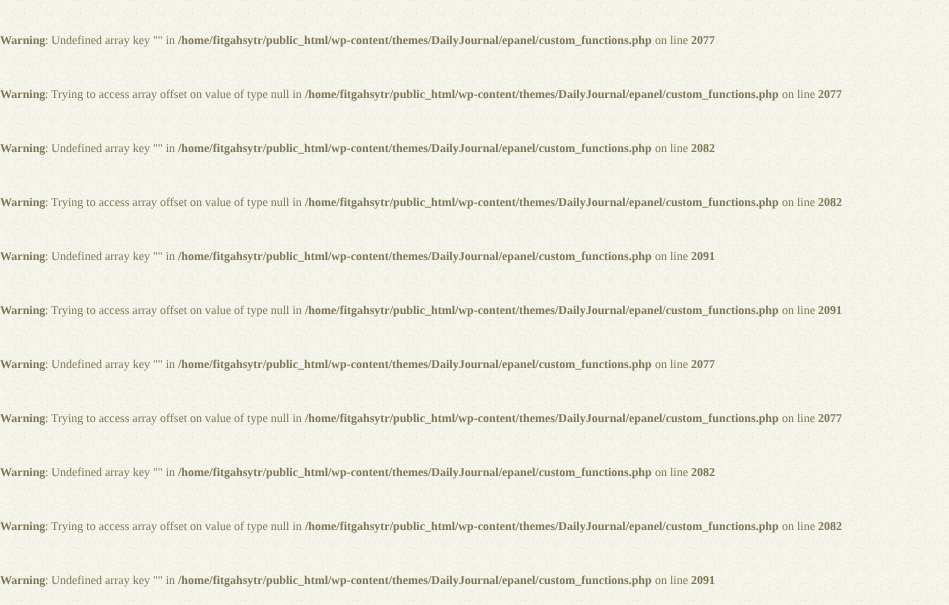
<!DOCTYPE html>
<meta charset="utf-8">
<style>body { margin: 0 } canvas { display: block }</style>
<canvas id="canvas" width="949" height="605"></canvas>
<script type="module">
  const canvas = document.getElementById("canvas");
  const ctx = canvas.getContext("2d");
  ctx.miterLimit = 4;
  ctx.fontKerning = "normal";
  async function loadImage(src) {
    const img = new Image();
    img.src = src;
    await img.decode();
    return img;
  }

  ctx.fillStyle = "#ffffff";
  ctx.fillRect(0, 0, 949, 605);
  ctx.drawImage(await loadImage("img1.png"), 0, 0, 949, 605);
  ctx.font = "bold 12px Liberation Serif";
  ctx.fillStyle = "#817757";
  ctx.fillText("Warning", 0, 44);
  ctx.font = "12px Liberation Serif";
  ctx.fillText(": Undefined array key \"\" in", 45, 44);
  ctx.font = "bold 12px Liberation Serif";
  ctx.fillText("/home/fitgahsytr/public_html/wp-content/themes/DailyJournal/epanel/custom_functions.php", 178, 44);
  ctx.font = "12px Liberation Serif";
  ctx.fillText("on line", 655, 44);
  ctx.font = "bold 12px Liberation Serif";
  ctx.fillText("2077", 691, 44);
  ctx.fillText("Warning", 0, 98);
  ctx.font = "12px Liberation Serif";
  ctx.fillText(": Trying to access array offset on value of type null in", 45, 98);
  ctx.font = "bold 12px Liberation Serif";
  ctx.fillText("/home/fitgahsytr/public_html/wp-content/themes/DailyJournal/epanel/custom_functions.php", 305, 98);
  ctx.font = "12px Liberation Serif";
  ctx.fillText("on line", 782, 98);
  ctx.font = "bold 12px Liberation Serif";
  ctx.fillText("2077", 818, 98);
  ctx.fillText("Warning", 0, 152);
  ctx.font = "12px Liberation Serif";
  ctx.fillText(": Undefined array key \"\" in", 45, 152);
  ctx.font = "bold 12px Liberation Serif";
  ctx.fillText("/home/fitgahsytr/public_html/wp-content/themes/DailyJournal/epanel/custom_functions.php", 178, 152);
  ctx.font = "12px Liberation Serif";
  ctx.fillText("on line", 655, 152);
  ctx.font = "bold 12px Liberation Serif";
  ctx.fillText("2082", 691, 152);
  ctx.fillText("Warning", 0, 206);
  ctx.font = "12px Liberation Serif";
  ctx.fillText(": Trying to access array offset on value of type null in", 45, 206);
  ctx.font = "bold 12px Liberation Serif";
  ctx.fillText("/home/fitgahsytr/public_html/wp-content/themes/DailyJournal/epanel/custom_functions.php", 305, 206);
  ctx.font = "12px Liberation Serif";
  ctx.fillText("on line", 782, 206);
  ctx.font = "bold 12px Liberation Serif";
  ctx.fillText("2082", 818, 206);
  ctx.fillText("Warning", 0, 260);
  ctx.font = "12px Liberation Serif";
  ctx.fillText(": Undefined array key \"\" in", 45, 260);
  ctx.font = "bold 12px Liberation Serif";
  ctx.fillText("/home/fitgahsytr/public_html/wp-content/themes/DailyJournal/epanel/custom_functions.php", 178, 260);
  ctx.font = "12px Liberation Serif";
  ctx.fillText("on line", 655, 260);
  ctx.font = "bold 12px Liberation Serif";
  ctx.fillText("2091", 691, 260);
  ctx.fillText("Warning", 0, 314);
  ctx.font = "12px Liberation Serif";
  ctx.fillText(": Trying to access array offset on value of type null in", 45, 314);
  ctx.font = "bold 12px Liberation Serif";
  ctx.fillText("/home/fitgahsytr/public_html/wp-content/themes/DailyJournal/epanel/custom_functions.php", 305, 314);
  ctx.font = "12px Liberation Serif";
  ctx.fillText("on line", 782, 314);
  ctx.font = "bold 12px Liberation Serif";
  ctx.fillText("2091", 818, 314);
  ctx.fillText("Warning", 0, 368);
  ctx.font = "12px Liberation Serif";
  ctx.fillText(": Undefined array key \"\" in", 45, 368);
  ctx.font = "bold 12px Liberation Serif";
  ctx.fillText("/home/fitgahsytr/public_html/wp-content/themes/DailyJournal/epanel/custom_functions.php", 178, 368);
  ctx.font = "12px Liberation Serif";
  ctx.fillText("on line", 655, 368);
  ctx.font = "bold 12px Liberation Serif";
  ctx.fillText("2077", 691, 368);
  ctx.fillText("Warning", 0, 422);
  ctx.font = "12px Liberation Serif";
  ctx.fillText(": Trying to access array offset on value of type null in", 45, 422);
  ctx.font = "bold 12px Liberation Serif";
  ctx.fillText("/home/fitgahsytr/public_html/wp-content/themes/DailyJournal/epanel/custom_functions.php", 305, 422);
  ctx.font = "12px Liberation Serif";
  ctx.fillText("on line", 782, 422);
  ctx.font = "bold 12px Liberation Serif";
  ctx.fillText("2077", 818, 422);
  ctx.fillText("Warning", 0, 476);
  ctx.font = "12px Liberation Serif";
  ctx.fillText(": Undefined array key \"\" in", 45, 476);
  ctx.font = "bold 12px Liberation Serif";
  ctx.fillText("/home/fitgahsytr/public_html/wp-content/themes/DailyJournal/epanel/custom_functions.php", 178, 476);
  ctx.font = "12px Liberation Serif";
  ctx.fillText("on line", 655, 476);
  ctx.font = "bold 12px Liberation Serif";
  ctx.fillText("2082", 691, 476);
  ctx.fillText("Warning", 0, 530);
  ctx.font = "12px Liberation Serif";
  ctx.fillText(": Trying to access array offset on value of type null in", 45, 530);
  ctx.font = "bold 12px Liberation Serif";
  ctx.fillText("/home/fitgahsytr/public_html/wp-content/themes/DailyJournal/epanel/custom_functions.php", 305, 530);
  ctx.font = "12px Liberation Serif";
  ctx.fillText("on line", 782, 530);
  ctx.font = "bold 12px Liberation Serif";
  ctx.fillText("2082", 818, 530);
  ctx.fillText("Warning", 0, 584);
  ctx.font = "12px Liberation Serif";
  ctx.fillText(": Undefined array key \"\" in", 45, 584);
  ctx.font = "bold 12px Liberation Serif";
  ctx.fillText("/home/fitgahsytr/public_html/wp-content/themes/DailyJournal/epanel/custom_functions.php", 178, 584);
  ctx.font = "12px Liberation Serif";
  ctx.fillText("on line", 655, 584);
  ctx.font = "bold 12px Liberation Serif";
  ctx.fillText("2091", 691, 584);
</script>
